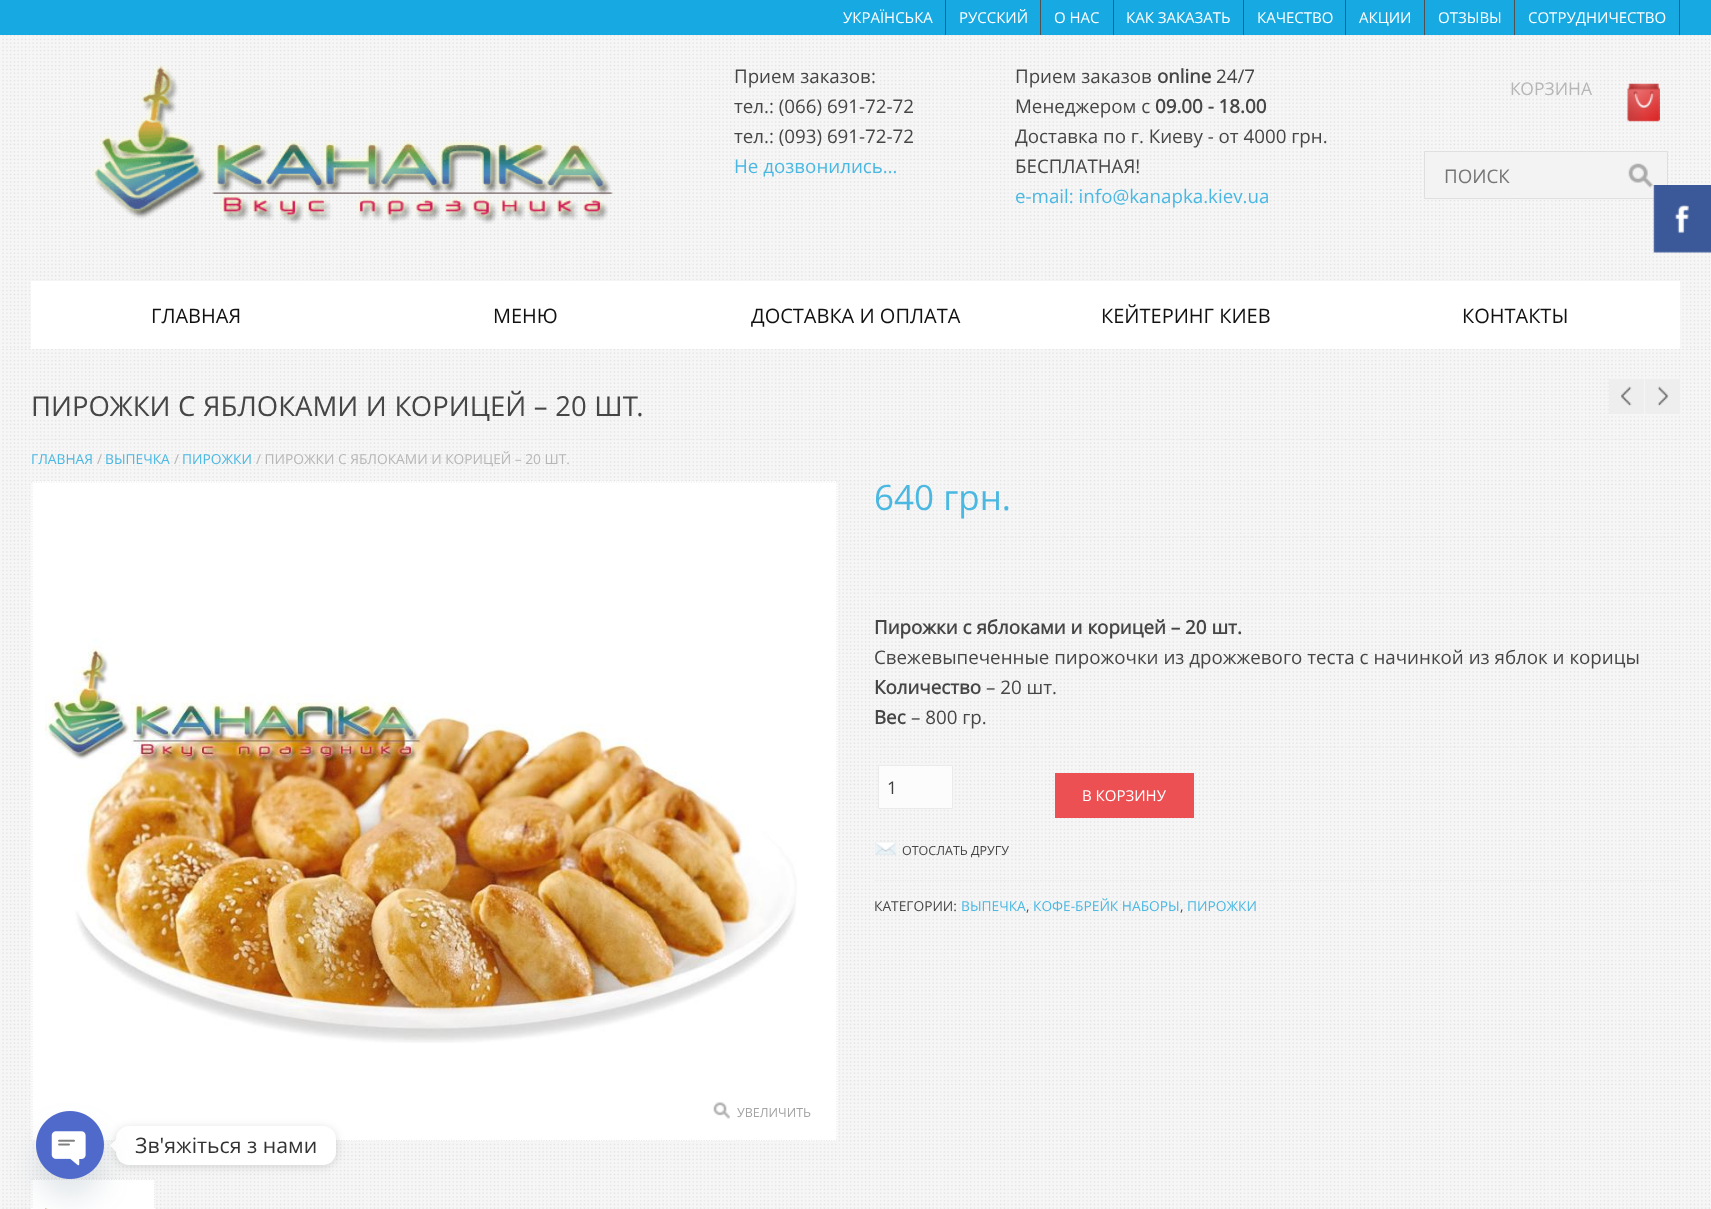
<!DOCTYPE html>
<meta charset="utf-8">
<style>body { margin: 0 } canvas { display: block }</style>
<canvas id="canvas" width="1711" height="1209"></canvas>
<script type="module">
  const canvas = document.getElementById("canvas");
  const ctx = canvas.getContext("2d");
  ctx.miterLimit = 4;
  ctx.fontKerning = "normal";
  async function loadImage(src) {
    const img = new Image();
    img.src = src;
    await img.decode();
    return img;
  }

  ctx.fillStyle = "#f6f6f6";
  ctx.fillRect(0, 0, 1711, 1209);
  ctx.drawImage(await loadImage("img1.png"), 2, 349, 1708, 860);
  ctx.fillStyle = "#16a9e2";
  ctx.fillRect(0, 0, 1711, 35);
  ctx.fillStyle = "#525252";
  ctx.fillRect(945, 0, 1, 35);
  ctx.font = "15px Open Sans";
  ctx.fillStyle = "#ffffff";
  ctx.fillText("УКРАЇНСЬКА", 843, 23);
  ctx.fillStyle = "#525252";
  ctx.fillRect(1040, 0, 1, 35);
  ctx.fillStyle = "#ffffff";
  ctx.fillText("РУССКИЙ", 959, 23);
  ctx.fillStyle = "#525252";
  ctx.fillRect(1113, 0, 1, 35);
  ctx.fillStyle = "#ffffff";
  ctx.fillText("О НАС", 1054, 23);
  ctx.fillStyle = "#525252";
  ctx.fillRect(1243, 0, 1, 35);
  ctx.fillStyle = "#ffffff";
  ctx.fillText("КАК ЗАКАЗАТЬ", 1126, 23);
  ctx.fillStyle = "#525252";
  ctx.fillRect(1345, 0, 1, 35);
  ctx.fillStyle = "#ffffff";
  ctx.fillText("КАЧЕСТВО", 1257, 23);
  ctx.fillStyle = "#525252";
  ctx.fillRect(1424, 0, 1, 35);
  ctx.fillStyle = "#ffffff";
  ctx.fillText("АКЦИИ", 1359, 23);
  ctx.fillStyle = "#525252";
  ctx.fillRect(1514, 0, 1, 35);
  ctx.fillStyle = "#ffffff";
  ctx.fillText("ОТЗЫВЫ", 1438, 23);
  ctx.fillStyle = "#525252";
  ctx.fillRect(1679, 0, 1, 35);
  ctx.fillStyle = "#ffffff";
  ctx.fillText("СОТРУДНИЧЕСТВО", 1528, 23);
  ctx.drawImage(await loadImage("img2.png"), 2, 35, 1708, 313);
  ctx.drawImage(await loadImage("img3.png"), 92, 64, 521, 160);
  ctx.font = "18.75px Open Sans";
  ctx.fillStyle = "#464646";
  ctx.fillText("Прием заказов:", 734, 83);
  ctx.fillText("тел.: (066) 691-72-72", 734, 113);
  ctx.fillText("тел.: (093) 691-72-72", 734, 143);
  ctx.fillStyle = "#4bb8e2";
  ctx.fillText("Не дозвонились…", 734, 173);
  ctx.fillStyle = "#464646";
  ctx.fillText("Прием заказов", 1015, 83);
  ctx.font = "bold 18.75px Open Sans";
  ctx.fillText("online", 1157, 83);
  ctx.font = "18.75px Open Sans";
  ctx.fillText("24/7", 1216, 83);
  ctx.fillText("Менеджером с", 1015, 113);
  ctx.font = "bold 18.75px Open Sans";
  ctx.fillText("09.00 - 18.00", 1155, 113);
  ctx.font = "18.75px Open Sans";
  ctx.fillText("Доставка по г. Киеву - от 4000 грн.", 1015, 143);
  ctx.fillText("БЕСПЛАТНАЯ!", 1015, 173);
  ctx.fillStyle = "#4bb8e2";
  ctx.fillText("e-mail: info@kanapka.kiev.ua", 1015, 203);
  ctx.font = "17.5px 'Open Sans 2'";
  ctx.fillStyle = "#b6b6b6";
  ctx.fillText("КОРЗИНА", 1510, 95);
  ctx.drawImage(await loadImage("img4.png"), 1627, 83, 33, 39);
  ctx.fillStyle = "#f3f3f3";
  ctx.beginPath();
  ctx.rect(1424.5, 151.5, 243, 47);
  ctx.fill();
  ctx.strokeStyle = "#dfdfdf";
  ctx.stroke();
  ctx.font = "18.75px Open Sans";
  ctx.fillStyle = "#757575";
  ctx.fillText("ПОИСК", 1444, 183);
  ctx.drawImage(await loadImage("img5.png"), 1628, 163, 25, 25);
  ctx.fillStyle = "#ffffff";
  ctx.fillRect(31, 281, 1649, 68);
  ctx.font = "20px Open Sans";
  ctx.fillStyle = "#111111";
  ctx.fillText("ГЛАВНАЯ", 151, 323);
  ctx.fillText("МЕНЮ", 493, 323);
  ctx.fillText("ДОСТАВКА И ОПЛАТА", 751, 323);
  ctx.fillText("КЕЙТЕРИНГ КИЕВ", 1101, 323);
  ctx.fillText("КОНТАКТЫ", 1462, 323);
  ctx.beginPath();
  ctx.moveTo(31, 439.5);
  ctx.lineTo(1680, 439.5);
  ctx.strokeStyle = "#eaeaea";
  ctx.lineWidth = 1.2;
  ctx.setLineDash([1.25, 1.25]);
  ctx.stroke();
  ctx.wordSpacing = "0.5px";
  ctx.font = "27.5px 'Open Sans 2'";
  ctx.fillStyle = "#464646";
  ctx.fillText("ПИРОЖКИ С ЯБЛОКАМИ И КОРИЦЕЙ – 20 ШТ.", 31, 416);
  ctx.fillStyle = "#eeeeee";
  ctx.fillRect(1609, 379, 35, 35);
  ctx.drawImage(await loadImage("img6.png"), 1621, 386, 11, 20);
  ctx.fillRect(1645, 379, 35, 35);
  ctx.drawImage(await loadImage("img7.png"), 1657, 386, 12, 20);
  ctx.wordSpacing = "0px";
  ctx.font = "13.75px Open Sans";
  ctx.fillStyle = "#4bb8e2";
  ctx.fillText("ГЛАВНАЯ", 31, 464);
  ctx.fillStyle = "#b6b6b6";
  ctx.fillText("/", 97, 464);
  ctx.fillStyle = "#4bb8e2";
  ctx.fillText("ВЫПЕЧКА", 105, 464);
  ctx.fillStyle = "#b6b6b6";
  ctx.fillText("/", 174, 464);
  ctx.fillStyle = "#4bb8e2";
  ctx.fillText("ПИРОЖКИ", 182, 464);
  ctx.fillStyle = "#b6b6b6";
  ctx.fillText("/ ПИРОЖКИ С ЯБЛОКАМИ И КОРИЦЕЙ – 20 ШТ.", 256, 464);
  ctx.font = "35px Open Sans";
  ctx.fillStyle = "#4bb8e2";
  ctx.fillText("640 грн.", 874, 510);
  ctx.beginPath();
  ctx.moveTo(875, 537);
  ctx.lineTo(1680, 537);
  ctx.stroke();
  ctx.beginPath();
  ctx.moveTo(875, 593);
  ctx.lineTo(1680, 593);
  ctx.stroke();
  ctx.font = "bold 18.75px Open Sans";
  ctx.fillStyle = "#464646";
  ctx.fillText("Пирожки с яблоками и корицей – 20 шт.", 874, 634);
  ctx.font = "18.75px Open Sans";
  ctx.fillText("Свежевыпеченные пирожочки из дрожжевого теста с начинкой из яблок и корицы", 874, 664);
  ctx.font = "bold 18.75px Open Sans";
  ctx.fillText("Количество", 874, 694);
  ctx.font = "18.75px Open Sans";
  ctx.fillText("– 20 шт.", 986, 694);
  ctx.font = "bold 18.75px Open Sans";
  ctx.fillText("Вес", 874, 724);
  ctx.font = "18.75px Open Sans";
  ctx.fillText("– 800 гр.", 911, 724);
  ctx.beginPath();
  ctx.moveTo(875, 747);
  ctx.lineTo(1680, 747);
  ctx.stroke();
  ctx.fillStyle = "rgba(252, 252, 252, 0.95)";
  ctx.beginPath();
  ctx.rect(878.5, 765.5, 74, 43);
  ctx.fill();
  ctx.lineWidth = 1;
  ctx.setLineDash([]);
  ctx.stroke();
  ctx.font = "17.5px Open Sans";
  ctx.fillStyle = "#3f3f3f";
  ctx.fillText("1", 887, 794);
  ctx.fillStyle = "#ed5053";
  ctx.fillRect(1055, 773, 139, 45);
  ctx.font = "15px Open Sans";
  ctx.fillStyle = "#ffffff";
  ctx.fillText("В КОРЗИНУ", 1082, 801);
  ctx.drawImage(await loadImage("img8.png"), 875, 841, 22, 14);
  ctx.font = "12.5px Open Sans";
  ctx.fillStyle = "#464646";
  ctx.fillText("ОТОСЛАТЬ ДРУГУ", 902, 855);
  ctx.beginPath();
  ctx.moveTo(875, 880.5);
  ctx.lineTo(1680, 880.5);
  ctx.lineWidth = 1.2;
  ctx.setLineDash([1.25, 1.25]);
  ctx.stroke();
  ctx.font = "13.75px Open Sans";
  ctx.fillText("КАТЕГОРИИ:", 874, 911);
  ctx.fillStyle = "#4bb8e2";
  ctx.fillText("ВЫПЕЧКА", 961, 911);
  ctx.fillStyle = "#464646";
  ctx.fillText(",", 1026, 911);
  ctx.fillStyle = "#4bb8e2";
  ctx.fillText("КОФЕ-БРЕЙК НАБОРЫ", 1033, 911);
  ctx.fillStyle = "#464646";
  ctx.fillText(",", 1180, 911);
  ctx.fillStyle = "#4bb8e2";
  ctx.fillText("ПИРОЖКИ", 1187, 911);
  ctx.fillStyle = "#ffffff";
  ctx.fillRect(31, 481, 807, 660);
  ctx.beginPath();
  ctx.moveTo(31, 482);
  ctx.lineTo(837.5, 482);
  ctx.stroke();
  ctx.beginPath();
  ctx.moveTo(837, 481);
  ctx.lineTo(837, 1141);
  ctx.stroke();
  ctx.beginPath();
  ctx.moveTo(31, 1140.5);
  ctx.lineTo(837.5, 1140.5);
  ctx.stroke();
  ctx.beginPath();
  ctx.moveTo(32, 481);
  ctx.lineTo(32, 1141);
  ctx.stroke();
  ctx.drawImage(await loadImage("img9.png"), 45, 638, 752, 405);
  ctx.drawImage(await loadImage("img10.png"), 713, 1102, 17, 17);
  ctx.font = "12.5px Open Sans";
  ctx.fillStyle = "#a3a3a3";
  ctx.fillText("УВЕЛИЧИТЬ", 737, 1117);
  ctx.fillStyle = "#ffffff";
  ctx.fillRect(31, 1179, 124, 30);
  ctx.save();
  ctx.beginPath();
  ctx.rect(25, 1179, 819, 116);
  ctx.clip();
  ctx.beginPath();
  ctx.moveTo(31, 1179.5);
  ctx.lineTo(155, 1179.5);
  ctx.stroke();
  ctx.restore();
  ctx.beginPath();
  ctx.moveTo(154.5, 1179);
  ctx.lineTo(154.5, 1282.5);
  ctx.stroke();
  ctx.beginPath();
  ctx.moveTo(32, 1179);
  ctx.lineTo(32, 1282.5);
  ctx.stroke();
  ctx.drawImage(await loadImage("img11.png"), 45, 1208, 3, 1);
  ctx.drawImage(await loadImage("img12.png"), 1653, 185, 58, 68);
  ctx.fillStyle = "rgba(0, 0, 0, 0.15)";
  ctx.filter = "blur(5px)";
  ctx.beginPath();
  ctx.roundRect(116, 1128, 220, 38, 13);
  ctx.fill();
  ctx.filter = "none";
  ctx.fillStyle = "#ffffff";
  ctx.beginPath();
  ctx.roundRect(116, 1126, 220, 39, 13);
  ctx.fill();
  ctx.beginPath();
  ctx.moveTo(116, 1139.5);
  ctx.lineTo(116, 1152);
  ctx.lineTo(110, 1145.5);
  ctx.closePath();
  ctx.fill();
  ctx.fillStyle = "rgba(73, 104, 126, 0.16)";
  ctx.filter = "blur(15px)";
  ctx.beginPath();
  ctx.roundRect(36, 1131, 68, 68, 34);
  ctx.fill();
  ctx.filter = "none";
  ctx.drawImage(await loadImage("img13.png"), 36, 1111, 68, 68);
  ctx.font = "21.25px Open Sans";
  ctx.fillStyle = "#333333";
  ctx.fillText("Зв'яжіться з нами", 135, 1153);
</script>
